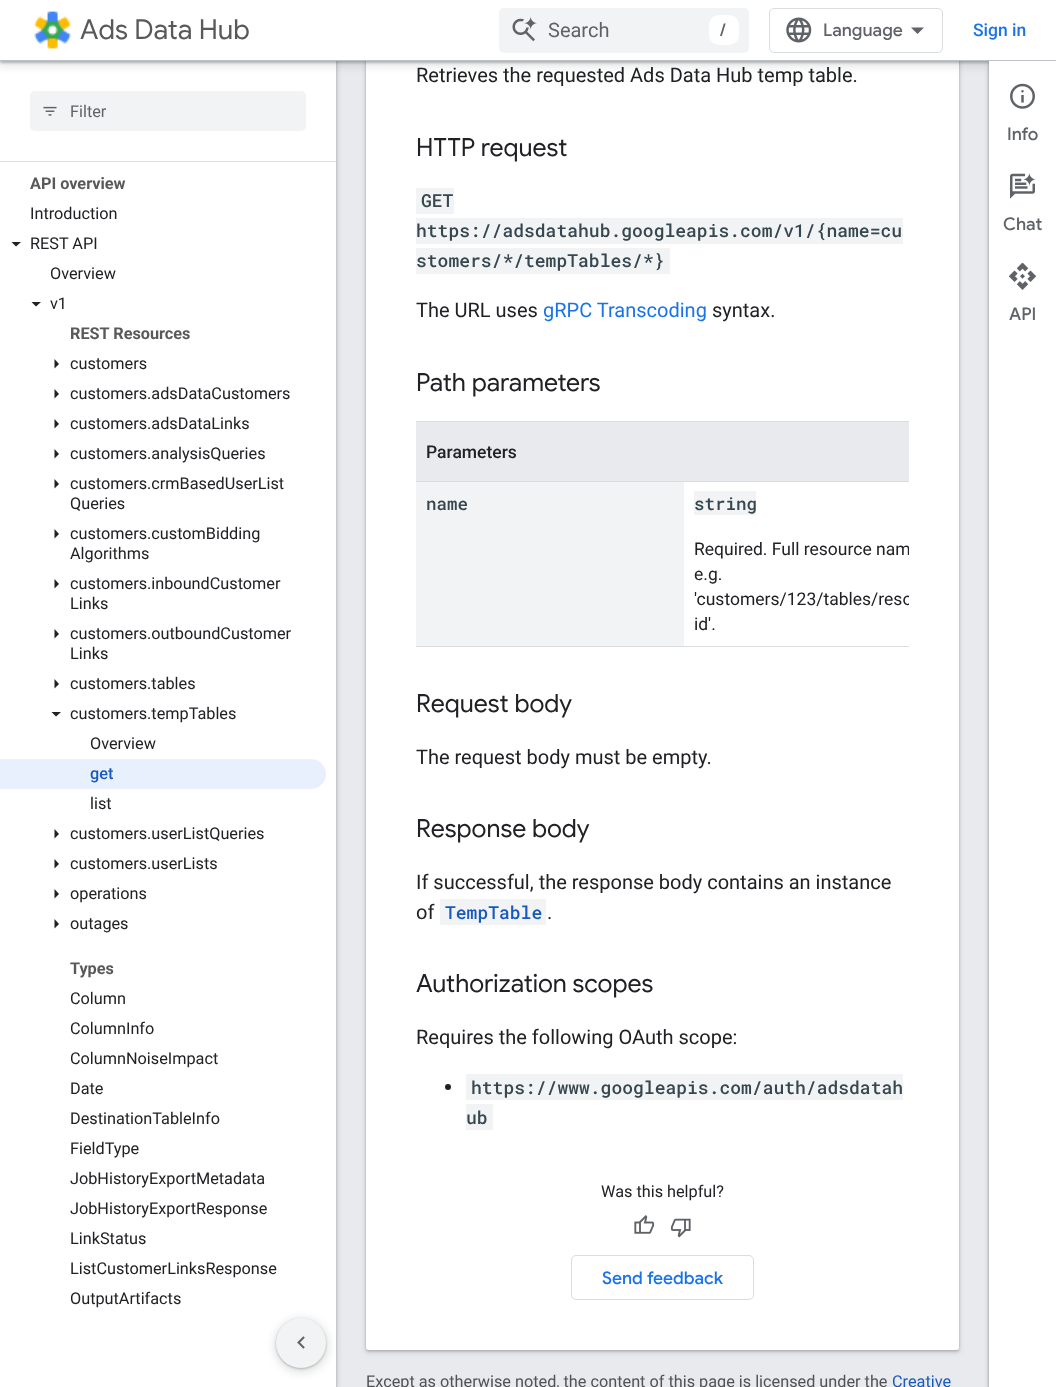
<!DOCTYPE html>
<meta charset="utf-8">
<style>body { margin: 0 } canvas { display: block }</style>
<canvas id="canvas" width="1056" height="1387"></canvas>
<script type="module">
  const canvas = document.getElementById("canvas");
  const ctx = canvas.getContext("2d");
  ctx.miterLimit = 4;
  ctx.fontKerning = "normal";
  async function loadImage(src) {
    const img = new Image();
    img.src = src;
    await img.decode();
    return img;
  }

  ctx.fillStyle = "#e8eaed";
  ctx.fillRect(0, 0, 1056, 1387);
  ctx.fillStyle = "rgba(60, 64, 67, 0.15)";
  ctx.filter = "blur(2px)";
  ctx.beginPath();
  ctx.rect(-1, 0, 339, 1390);
  ctx.fill();
  ctx.filter = "none";
  ctx.fillStyle = "rgba(60, 64, 67, 0.3)";
  ctx.filter = "blur(1px)";
  ctx.beginPath();
  ctx.rect(0, 1, 336, 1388);
  ctx.fill();
  ctx.filter = "none";
  ctx.fillStyle = "#ffffff";
  ctx.fillRect(0, 61, 336, 1326);
  ctx.fillStyle = "rgba(60, 64, 67, 0.15)";
  ctx.filter = "blur(2px)";
  ctx.beginPath();
  ctx.roundRect(365, -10, 595, 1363, 4);
  ctx.fill();
  ctx.filter = "none";
  ctx.fillStyle = "rgba(60, 64, 67, 0.3)";
  ctx.filter = "blur(1px)";
  ctx.beginPath();
  ctx.roundRect(366, -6, 593, 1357, 2.5);
  ctx.fill();
  ctx.filter = "none";
  ctx.fillStyle = "#ffffff";
  ctx.beginPath();
  ctx.roundRect(366, -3, 593, 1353, 2.5);
  ctx.fill();
  ctx.fillStyle = "rgba(60, 64, 67, 0.15)";
  ctx.filter = "blur(4px)";
  ctx.beginPath();
  ctx.rect(-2, 1, 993, 65);
  ctx.fill();
  ctx.filter = "none";
  ctx.fillStyle = "rgba(60, 64, 67, 0.3)";
  ctx.filter = "blur(1px)";
  ctx.beginPath();
  ctx.rect(0, 3, 989, 60);
  ctx.fill();
  ctx.filter = "none";
  ctx.fillStyle = "rgba(0, 0, 0, 0.15)";
  ctx.filter = "blur(2px)";
  ctx.beginPath();
  ctx.rect(988, 60, 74, 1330);
  ctx.fill();
  ctx.filter = "none";
  ctx.fillStyle = "rgba(0, 0, 0, 0.3)";
  ctx.filter = "blur(1px)";
  ctx.beginPath();
  ctx.rect(989, 61, 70, 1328);
  ctx.fill();
  ctx.filter = "none";
  ctx.fillStyle = "#ffffff";
  ctx.fillRect(0, 0, 1056, 60);
  ctx.fillStyle = "#bdc1c6";
  ctx.fillRect(0, 60, 1056, 1);
  ctx.drawImage(await loadImage("img1.png"), 34, 11, 38, 38);
  ctx.font = "27.5px Google Sans";
  ctx.fillStyle = "#595959";
  ctx.fillText("Ads Data Hub", 80, 39);
  ctx.fillStyle = "#f1f3f4";
  ctx.beginPath();
  ctx.roundRect(499, 8, 250, 45, 5);
  ctx.fill();
  ctx.drawImage(await loadImage("img2.png"), 512, 16, 25, 26);
  ctx.font = "20px Roboto";
  ctx.fillStyle = "#5f6368";
  ctx.fillText("Search", 548, 37);
  ctx.fillStyle = "#ffffff";
  ctx.beginPath();
  ctx.roundRect(709, 15, 30, 30, 10);
  ctx.fill();
  ctx.font = "500 17.5px Google Sans";
  ctx.fillStyle = "#5f6368";
  ctx.fillText("/", 720, 36);
  ctx.beginPath();
  ctx.roundRect(769.5, 8.5, 173, 44, 4.5);
  ctx.strokeStyle = "#dadce0";
  ctx.stroke();
  ctx.drawImage(await loadImage("img3.png"), 786, 17, 26, 26);
  ctx.fillText("Language", 823, 36);
  ctx.beginPath();
  ctx.moveTo(917.5, 34);
  ctx.lineTo(911, 27.5);
  ctx.lineTo(924, 27.5);
  ctx.closePath();
  ctx.fill();
  ctx.font = "500 17.5px Roboto";
  ctx.fillStyle = "#1a73e8";
  ctx.fillText("Sign in", 973, 36);
  ctx.fillStyle = "#dadce0";
  ctx.fillRect(0, 161, 336, 1);
  ctx.fillStyle = "#f1f3f4";
  ctx.beginPath();
  ctx.roundRect(30, 91, 276, 40, 5);
  ctx.fill();
  ctx.drawImage(await loadImage("img4.png"), 43, 106, 14, 10);
  ctx.font = "16.25px Roboto";
  ctx.fillStyle = "#5f6368";
  ctx.fillText("Filter", 70, 117);
  ctx.font = "bold 16.25px Roboto";
  ctx.fillStyle = "#595959";
  ctx.fillText("API overview", 30, 189);
  ctx.font = "16.25px Roboto";
  ctx.fillStyle = "#202124";
  ctx.fillText("Introduction", 30, 219);
  ctx.beginPath();
  ctx.moveTo(11.5, 242);
  ctx.lineTo(21, 242);
  ctx.lineTo(16, 246.5);
  ctx.closePath();
  ctx.fill();
  ctx.fillText("REST API", 30, 249);
  ctx.fillText("Overview", 50, 279);
  ctx.beginPath();
  ctx.moveTo(31.5, 302);
  ctx.lineTo(41, 302);
  ctx.lineTo(36, 306.5);
  ctx.closePath();
  ctx.fill();
  ctx.fillText("v1", 50, 309);
  ctx.font = "bold 16.25px Roboto";
  ctx.fillStyle = "#595959";
  ctx.fillText("REST Resources", 70, 339);
  ctx.fillStyle = "#202124";
  ctx.beginPath();
  ctx.moveTo(54.5, 368.5);
  ctx.lineTo(54.5, 359);
  ctx.lineTo(59, 364);
  ctx.closePath();
  ctx.fill();
  ctx.font = "16.25px Roboto";
  ctx.fillText("customers", 70, 369);
  ctx.beginPath();
  ctx.moveTo(54.5, 398.5);
  ctx.lineTo(54.5, 389);
  ctx.lineTo(59, 394);
  ctx.closePath();
  ctx.fill();
  ctx.fillText("customers.adsDataCustomers", 70, 399);
  ctx.beginPath();
  ctx.moveTo(54.5, 428.5);
  ctx.lineTo(54.5, 419);
  ctx.lineTo(59, 424);
  ctx.closePath();
  ctx.fill();
  ctx.fillText("customers.adsDataLinks", 70, 429);
  ctx.beginPath();
  ctx.moveTo(54.5, 458.5);
  ctx.lineTo(54.5, 449);
  ctx.lineTo(59, 454);
  ctx.closePath();
  ctx.fill();
  ctx.fillText("customers.analysisQueries", 70, 459);
  ctx.beginPath();
  ctx.moveTo(54.5, 488.5);
  ctx.lineTo(54.5, 479);
  ctx.lineTo(59, 484);
  ctx.closePath();
  ctx.fill();
  ctx.fillText("customers.crmBasedUserList", 70, 489);
  ctx.fillText("Queries", 70, 509);
  ctx.beginPath();
  ctx.moveTo(54.5, 538.5);
  ctx.lineTo(54.5, 529);
  ctx.lineTo(59, 534);
  ctx.closePath();
  ctx.fill();
  ctx.fillText("customers.customBidding", 70, 539);
  ctx.fillText("Algorithms", 70, 559);
  ctx.beginPath();
  ctx.moveTo(54.5, 588.5);
  ctx.lineTo(54.5, 579);
  ctx.lineTo(59, 584);
  ctx.closePath();
  ctx.fill();
  ctx.fillText("customers.inboundCustomer", 70, 589);
  ctx.fillText("Links", 70, 609);
  ctx.beginPath();
  ctx.moveTo(54.5, 638.5);
  ctx.lineTo(54.5, 629);
  ctx.lineTo(59, 634);
  ctx.closePath();
  ctx.fill();
  ctx.fillText("customers.outboundCustomer", 70, 639);
  ctx.fillText("Links", 70, 659);
  ctx.beginPath();
  ctx.moveTo(54.5, 688.5);
  ctx.lineTo(54.5, 679);
  ctx.lineTo(59, 684);
  ctx.closePath();
  ctx.fill();
  ctx.fillText("customers.tables", 70, 689);
  ctx.beginPath();
  ctx.moveTo(51.5, 712);
  ctx.lineTo(61, 712);
  ctx.lineTo(56, 716.5);
  ctx.closePath();
  ctx.fill();
  ctx.fillText("customers.tempTables", 70, 719);
  ctx.fillText("Overview", 90, 749);
  ctx.fillStyle = "#e8f0fe";
  ctx.beginPath();
  ctx.roundRect(0, 759, 326, 30, [0, 15, 15, 0]);
  ctx.fill();
  ctx.font = "500 16.25px Roboto";
  ctx.fillStyle = "#185abc";
  ctx.fillText("get", 90, 779);
  ctx.font = "16.25px Roboto";
  ctx.fillStyle = "#202124";
  ctx.fillText("list", 90, 809);
  ctx.beginPath();
  ctx.moveTo(54.5, 838.5);
  ctx.lineTo(54.5, 829);
  ctx.lineTo(59, 834);
  ctx.closePath();
  ctx.fill();
  ctx.fillText("customers.userListQueries", 70, 839);
  ctx.beginPath();
  ctx.moveTo(54.5, 868.5);
  ctx.lineTo(54.5, 859);
  ctx.lineTo(59, 864);
  ctx.closePath();
  ctx.fill();
  ctx.fillText("customers.userLists", 70, 869);
  ctx.beginPath();
  ctx.moveTo(54.5, 898.5);
  ctx.lineTo(54.5, 889);
  ctx.lineTo(59, 894);
  ctx.closePath();
  ctx.fill();
  ctx.fillText("operations", 70, 899);
  ctx.beginPath();
  ctx.moveTo(54.5, 928.5);
  ctx.lineTo(54.5, 919);
  ctx.lineTo(59, 924);
  ctx.closePath();
  ctx.fill();
  ctx.fillText("outages", 70, 929);
  ctx.font = "bold 16.25px Roboto";
  ctx.fillStyle = "#595959";
  ctx.fillText("Types", 70, 974);
  ctx.font = "16.25px Roboto";
  ctx.fillStyle = "#202124";
  ctx.fillText("Column", 70, 1004);
  ctx.fillText("ColumnInfo", 70, 1034);
  ctx.fillText("ColumnNoiseImpact", 70, 1064);
  ctx.fillText("Date", 70, 1094);
  ctx.fillText("DestinationTableInfo", 70, 1124);
  ctx.fillText("FieldType", 70, 1154);
  ctx.fillText("JobHistoryExportMetadata", 70, 1184);
  ctx.fillText("JobHistoryExportResponse", 70, 1214);
  ctx.fillText("LinkStatus", 70, 1244);
  ctx.fillText("ListCustomerLinksResponse", 70, 1274);
  ctx.fillText("OutputArtifacts", 70, 1304);
  ctx.font = "20px Roboto";
  ctx.fillText("Retrieves the requested Ads Data Hub temp table.", 416, 82);
  ctx.font = "25px Google Sans";
  ctx.fillText("HTTP request", 416, 156);
  ctx.fillStyle = "#f1f3f4";
  ctx.fillRect(416, 188, 38, 26);
  ctx.font = "500 18px Roboto Mono";
  ctx.fillStyle = "#37474f";
  ctx.fillText("GET", 421, 207);
  ctx.fillStyle = "#f1f3f4";
  ctx.fillRect(416, 218, 487, 26);
  ctx.fillStyle = "#37474f";
  ctx.fillText("https://adsdatahub.googleapis.com/v1/{name=cu", 416, 237);
  ctx.fillStyle = "#f1f3f4";
  ctx.fillRect(416, 248, 254, 26);
  ctx.fillStyle = "#37474f";
  ctx.fillText("stomers/*/tempTables/*}", 416, 267);
  ctx.font = "20px Roboto";
  ctx.fillStyle = "#202124";
  ctx.fillText("The URL uses", 416, 317);
  ctx.fillStyle = "#1a73e8";
  ctx.fillText("gRPC Transcoding", 543, 317);
  ctx.fillStyle = "#202124";
  ctx.fillText("syntax.", 712, 317);
  ctx.font = "25px Google Sans";
  ctx.fillText("Path parameters", 416, 391);
  ctx.fillStyle = "#dadce0";
  ctx.fillRect(416, 421, 493, 1);
  ctx.fillStyle = "#e8eaed";
  ctx.fillRect(416, 422, 493, 59);
  ctx.font = "500 17.5px Roboto";
  ctx.fillStyle = "#202124";
  ctx.fillText("Parameters", 426, 458);
  ctx.fillStyle = "#dadce0";
  ctx.fillRect(416, 481, 493, 1);
  ctx.fillRect(416, 646, 493, 1);
  ctx.fillStyle = "#f1f3f4";
  ctx.fillRect(416, 482, 268, 164);
  ctx.font = "500 17.5px Roboto Mono";
  ctx.fillStyle = "#37474f";
  ctx.fillText("name", 426, 510);
  ctx.fillStyle = "#f1f3f4";
  ctx.fillRect(694, 491, 62, 24);
  ctx.fillStyle = "#37474f";
  ctx.fillText("string", 694, 510);
  ctx.save();
  ctx.beginPath();
  ctx.rect(416, 421, 493, 227);
  ctx.clip();
  ctx.font = "17.5px Roboto";
  ctx.fillStyle = "#202124";
  ctx.fillText("Required. Full resource nam", 694, 555);
  ctx.restore();
  ctx.font = "17.5px Roboto";
  ctx.fillStyle = "#202124";
  ctx.fillText("e.g.", 694, 580);
  ctx.save();
  ctx.beginPath();
  ctx.rect(416, 421, 493, 227);
  ctx.clip();
  ctx.fillText("'customers/123/tables/reso", 694, 605);
  ctx.restore();
  ctx.fillText("id'.", 694, 630);
  ctx.font = "25px Google Sans";
  ctx.fillText("Request body", 416, 712);
  ctx.font = "20px Roboto";
  ctx.fillText("The request body must be empty.", 416, 764);
  ctx.font = "25px Google Sans";
  ctx.fillText("Response body", 416, 837);
  ctx.font = "20px Roboto";
  ctx.fillText("If successful, the response body contains an instance", 416, 889);
  ctx.fillText("of", 416, 919);
  ctx.fillStyle = "#f1f3f4";
  ctx.fillRect(440, 899, 106, 26);
  ctx.font = "500 18px Roboto Mono";
  ctx.fillStyle = "#185abc";
  ctx.fillText("TempTable", 445, 919);
  ctx.font = "20px Roboto";
  ctx.fillStyle = "#202124";
  ctx.fillText(".", 547, 919);
  ctx.font = "25px Google Sans";
  ctx.fillText("Authorization scopes", 416, 992);
  ctx.font = "20px Roboto";
  ctx.fillText("Requires the following OAuth scope:", 416, 1044);
  ctx.beginPath();
  ctx.arc(448, 1087, 3, 0, Math.PI * 2);
  ctx.fill();
  ctx.fillStyle = "#f1f3f4";
  ctx.fillRect(466, 1074, 437, 26);
  ctx.font = "500 18px Roboto Mono";
  ctx.fillStyle = "#37474f";
  ctx.fillText("https://www.googleapis.com/auth/adsdatah", 471, 1094);
  ctx.fillStyle = "#f1f3f4";
  ctx.fillRect(466, 1104, 27, 26);
  ctx.fillStyle = "#37474f";
  ctx.fillText("ub", 466, 1124);
  ctx.font = "16.25px Roboto";
  ctx.fillStyle = "#202124";
  ctx.fillText("Was this helpful?", 601, 1197);
  ctx.drawImage(await loadImage("img5.png"), 634, 1215, 21, 19);
  ctx.drawImage(await loadImage("img6.png"), 670, 1218, 21, 20);
  ctx.beginPath();
  ctx.roundRect(571.5, 1255.5, 182, 44, 4.5);
  ctx.stroke();
  ctx.font = "500 17.5px Google Sans";
  ctx.fillStyle = "#1a73e8";
  ctx.fillText("Send feedback", 602, 1284);
  ctx.font = "16.25px Roboto";
  ctx.fillStyle = "#515253";
  ctx.fillText("Except as otherwise noted, the content of this page is licensed under the", 366, 1387);
  ctx.fillStyle = "#185abc";
  ctx.fillText("Creative", 892, 1387);
  ctx.fillStyle = "#ffffff";
  ctx.fillRect(989, 61, 67, 1326);
  ctx.drawImage(await loadImage("img7.png"), 1010, 83, 25, 26);
  ctx.font = "500 17.5px Google Sans";
  ctx.fillStyle = "#5f6368";
  ctx.fillText("Info", 1007, 140);
  ctx.drawImage(await loadImage("img8.png"), 1010, 173, 26, 26);
  ctx.fillText("Chat", 1003, 230);
  ctx.drawImage(await loadImage("img9.png"), 1009, 263, 27, 27);
  ctx.fillText("API", 1009, 320);
  ctx.fillStyle = "rgba(60, 64, 67, 0.15)";
  ctx.filter = "blur(4px)";
  ctx.beginPath();
  ctx.roundRect(274, 1318, 55, 55, 27.5);
  ctx.fill();
  ctx.filter = "none";
  ctx.fillStyle = "rgba(60, 64, 67, 0.3)";
  ctx.filter = "blur(1px)";
  ctx.beginPath();
  ctx.roundRect(276, 1319, 50, 50, 25);
  ctx.fill();
  ctx.filter = "none";
  ctx.fillStyle = "#f1f3f4";
  ctx.beginPath();
  ctx.arc(301, 1343, 25, 0, Math.PI * 2);
  ctx.fill();
  ctx.drawImage(await loadImage("img10.png"), 297, 1336, 8, 13);
</script>
